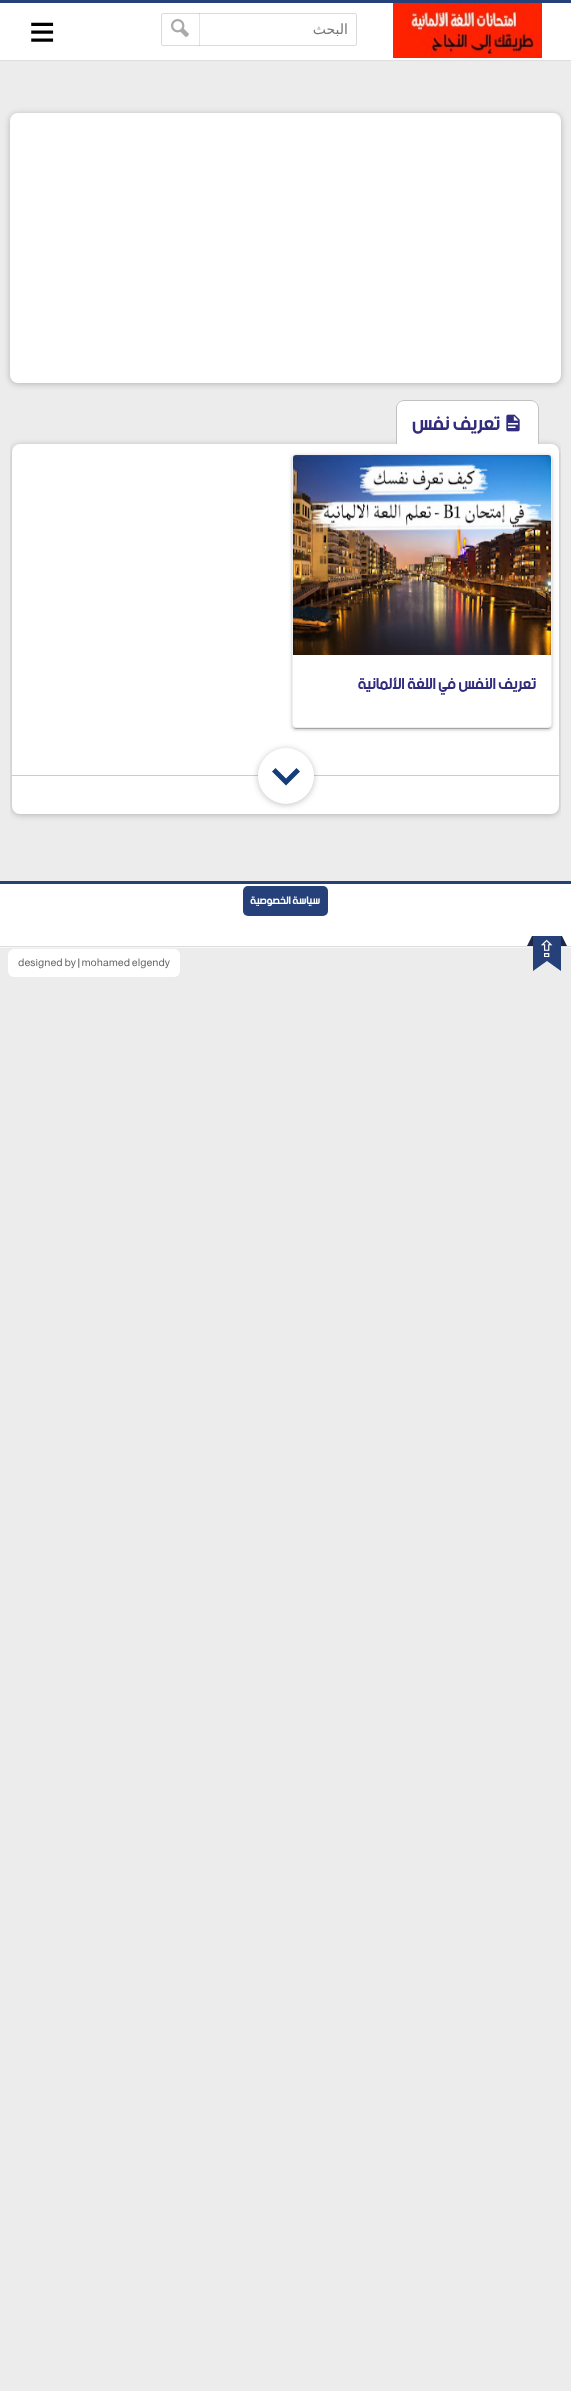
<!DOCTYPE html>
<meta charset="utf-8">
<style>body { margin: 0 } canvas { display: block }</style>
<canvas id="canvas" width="571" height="2391"></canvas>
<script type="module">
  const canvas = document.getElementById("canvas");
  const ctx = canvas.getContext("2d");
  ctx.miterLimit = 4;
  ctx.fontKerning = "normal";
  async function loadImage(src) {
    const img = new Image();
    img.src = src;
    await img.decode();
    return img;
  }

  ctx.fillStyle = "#ececec";
  ctx.fillRect(0, 0, 571, 2391);
  ctx.strokeStyle = "#dedede";
  ctx.strokeRect(-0.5, -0.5, 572, 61);
  ctx.fillStyle = "#ffffff";
  ctx.fillRect(0, 3, 571, 57);
  ctx.fillStyle = "#264079";
  ctx.fillRect(0, 0, 571, 3);
  ctx.drawImage(await loadImage("img1.png"), 393, 3, 149, 55);
  ctx.beginPath();
  ctx.roundRect(161.5, 13.5, 195, 32, 1.5);
  ctx.strokeStyle = "#dbdbdb";
  ctx.stroke();
  ctx.direction = "rtl";
  ctx.font = "14px DejaVu Sans";
  ctx.fillStyle = "#757575";
  ctx.fillText("البحث", 348, 34);
  ctx.fillStyle = "rgba(0, 0, 0, 0.1)";
  ctx.fillRect(199, 13, 1, 33);
  ctx.drawImage(await loadImage("img2.png"), 171, 19, 18, 18);
  ctx.direction = "ltr";
  ctx.font = "45px Liberation Sans";
  ctx.fillStyle = "#000000";
  ctx.fillText("≡", 29, 47);
  ctx.fillStyle = "rgba(32, 33, 36, 0.28)";
  ctx.filter = "blur(3px)";
  ctx.beginPath();
  ctx.roundRect(10, 114, 551, 270, 8);
  ctx.fill();
  ctx.filter = "none";
  ctx.fillStyle = "#ffffff";
  ctx.beginPath();
  ctx.roundRect(10, 113, 551, 270, 8);
  ctx.fill();
  ctx.save();
  ctx.beginPath();
  ctx.rect(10, 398, 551, 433);
  ctx.clip();
  ctx.fillStyle = "rgba(32, 33, 36, 0.28)";
  ctx.filter = "blur(3px)";
  ctx.beginPath();
  ctx.roundRect(12, 445, 547, 370, 8);
  ctx.fill();
  ctx.filter = "none";
  ctx.restore();
  ctx.beginPath();
  ctx.roundRect(396, 400, 143, 44, [8, 8, 0, 0]);
  ctx.fill();
  ctx.fillStyle = "rgba(32, 33, 36, 0.28)";
  ctx.beginPath();
  ctx.moveTo(404, 400);
  ctx.lineTo(531, 400);
  ctx.bezierCurveTo(535, 400, 539, 404, 539, 408);
  ctx.lineTo(539, 444);
  ctx.lineTo(396, 444);
  ctx.lineTo(396, 408);
  ctx.bezierCurveTo(396, 404, 400, 400, 404, 400);
  ctx.closePath();
  ctx.moveTo(404, 401);
  ctx.lineTo(531, 401);
  ctx.bezierCurveTo(535, 401, 538, 404, 538, 408);
  ctx.lineTo(538, 444);
  ctx.lineTo(397, 444);
  ctx.lineTo(397, 408);
  ctx.bezierCurveTo(397, 404, 400, 401, 404, 401);
  ctx.closePath();
  ctx.fill("evenodd");
  ctx.drawImage(await loadImage("img3.png"), 506, 414, 14, 18);
  ctx.direction = "rtl";
  ctx.font = "bold 20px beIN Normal";
  ctx.fillStyle = "#312c7e";
  ctx.fillText("تعريف نفس", 500, 430);
  ctx.fillStyle = "#ffffff";
  ctx.beginPath();
  ctx.roundRect(12, 444, 547, 370, 8);
  ctx.fill();
  ctx.fillStyle = "rgba(0, 0, 0, 0.2)";
  ctx.filter = "blur(0.5px)";
  ctx.beginPath();
  ctx.roundRect(294, 459, 256, 270, 2);
  ctx.fill();
  ctx.filter = "none";
  ctx.fillStyle = "rgba(0, 0, 0, 0.12)";
  ctx.filter = "blur(2.5px)";
  ctx.beginPath();
  ctx.roundRect(292, 455, 260, 274, 4);
  ctx.fill();
  ctx.filter = "none";
  ctx.fillStyle = "rgba(0, 0, 0, 0.14)";
  ctx.filter = "blur(1px)";
  ctx.beginPath();
  ctx.roundRect(292, 456, 260, 274, 4);
  ctx.fill();
  ctx.filter = "none";
  ctx.fillStyle = "#ffffff";
  ctx.beginPath();
  ctx.roundRect(292.5, 454.5, 259, 273, 3.5);
  ctx.fill();
  ctx.strokeStyle = "#eeeeee";
  ctx.stroke();
  ctx.drawImage(await loadImage("img4.png"), 293, 455, 258, 200);
  ctx.font = "bold 16px beIN Normal";
  ctx.fillStyle = "#312c7e";
  ctx.fillText("تعريف النفس في اللغة الألمانية", 536, 689);
  ctx.fillStyle = "#cccccc";
  ctx.fillRect(12, 775, 547, 1);
  ctx.fillStyle = "rgba(32, 33, 36, 0.28)";
  ctx.filter = "blur(3px)";
  ctx.beginPath();
  ctx.roundRect(258, 749, 56, 56, 28);
  ctx.fill();
  ctx.filter = "none";
  ctx.fillStyle = "#ffffff";
  ctx.beginPath();
  ctx.arc(286, 776, 28, 0, Math.PI * 2);
  ctx.fill();
  ctx.fillStyle = "#153d7a";
  ctx.beginPath();
  ctx.moveTo(296.5, 768);
  ctx.lineTo(286, 778.5);
  ctx.lineTo(275.5, 768);
  ctx.lineTo(272, 771.5);
  ctx.lineTo(286, 785.5);
  ctx.lineTo(300, 771.5);
  ctx.closePath();
  ctx.fill();
  ctx.fillStyle = "#ffffff";
  ctx.fillRect(0, 884, 571, 62);
  ctx.fillStyle = "#264079";
  ctx.fillRect(0, 881, 571, 3);
  ctx.beginPath();
  ctx.roundRect(243, 886, 85, 30, 5);
  ctx.fill();
  ctx.font = "bold 11px beIN Normal";
  ctx.fillStyle = "#ffffff";
  ctx.fillText("سياسة الخصوصية", 320, 904);
  ctx.fillStyle = "#dddddd";
  ctx.fillRect(0, 946, 571, 1);
  ctx.fillStyle = "#f7f7f7";
  ctx.fillRect(0, 947, 571, 1);
  ctx.fillStyle = "#1c2a48";
  ctx.beginPath();
  ctx.moveTo(567, 946);
  ctx.lineTo(527, 946);
  ctx.lineTo(532, 936);
  ctx.lineTo(562, 936);
  ctx.closePath();
  ctx.fill();
  ctx.fillStyle = "#264079";
  ctx.fillRect(533, 936, 28, 25);
  ctx.direction = "ltr";
  ctx.font = "23px DejaVu Sans";
  ctx.fillStyle = "#ffffff";
  ctx.fillText("⇪", 537, 957);
  ctx.fillStyle = "#264079";
  ctx.beginPath();
  ctx.moveTo(561, 961);
  ctx.lineTo(561, 971);
  ctx.lineTo(547, 961);
  ctx.closePath();
  ctx.moveTo(533, 971);
  ctx.lineTo(533, 961);
  ctx.lineTo(547, 961);
  ctx.closePath();
  ctx.fill();
  ctx.fillStyle = "#ffffff";
  ctx.beginPath();
  ctx.roundRect(8, 949, 172, 28, 6);
  ctx.fill();
  ctx.font = "10.8px beIN Normal";
  ctx.fillStyle = "#636363";
  ctx.fillText("designed by | mohamed elgendy", 18, 966);
</script>
